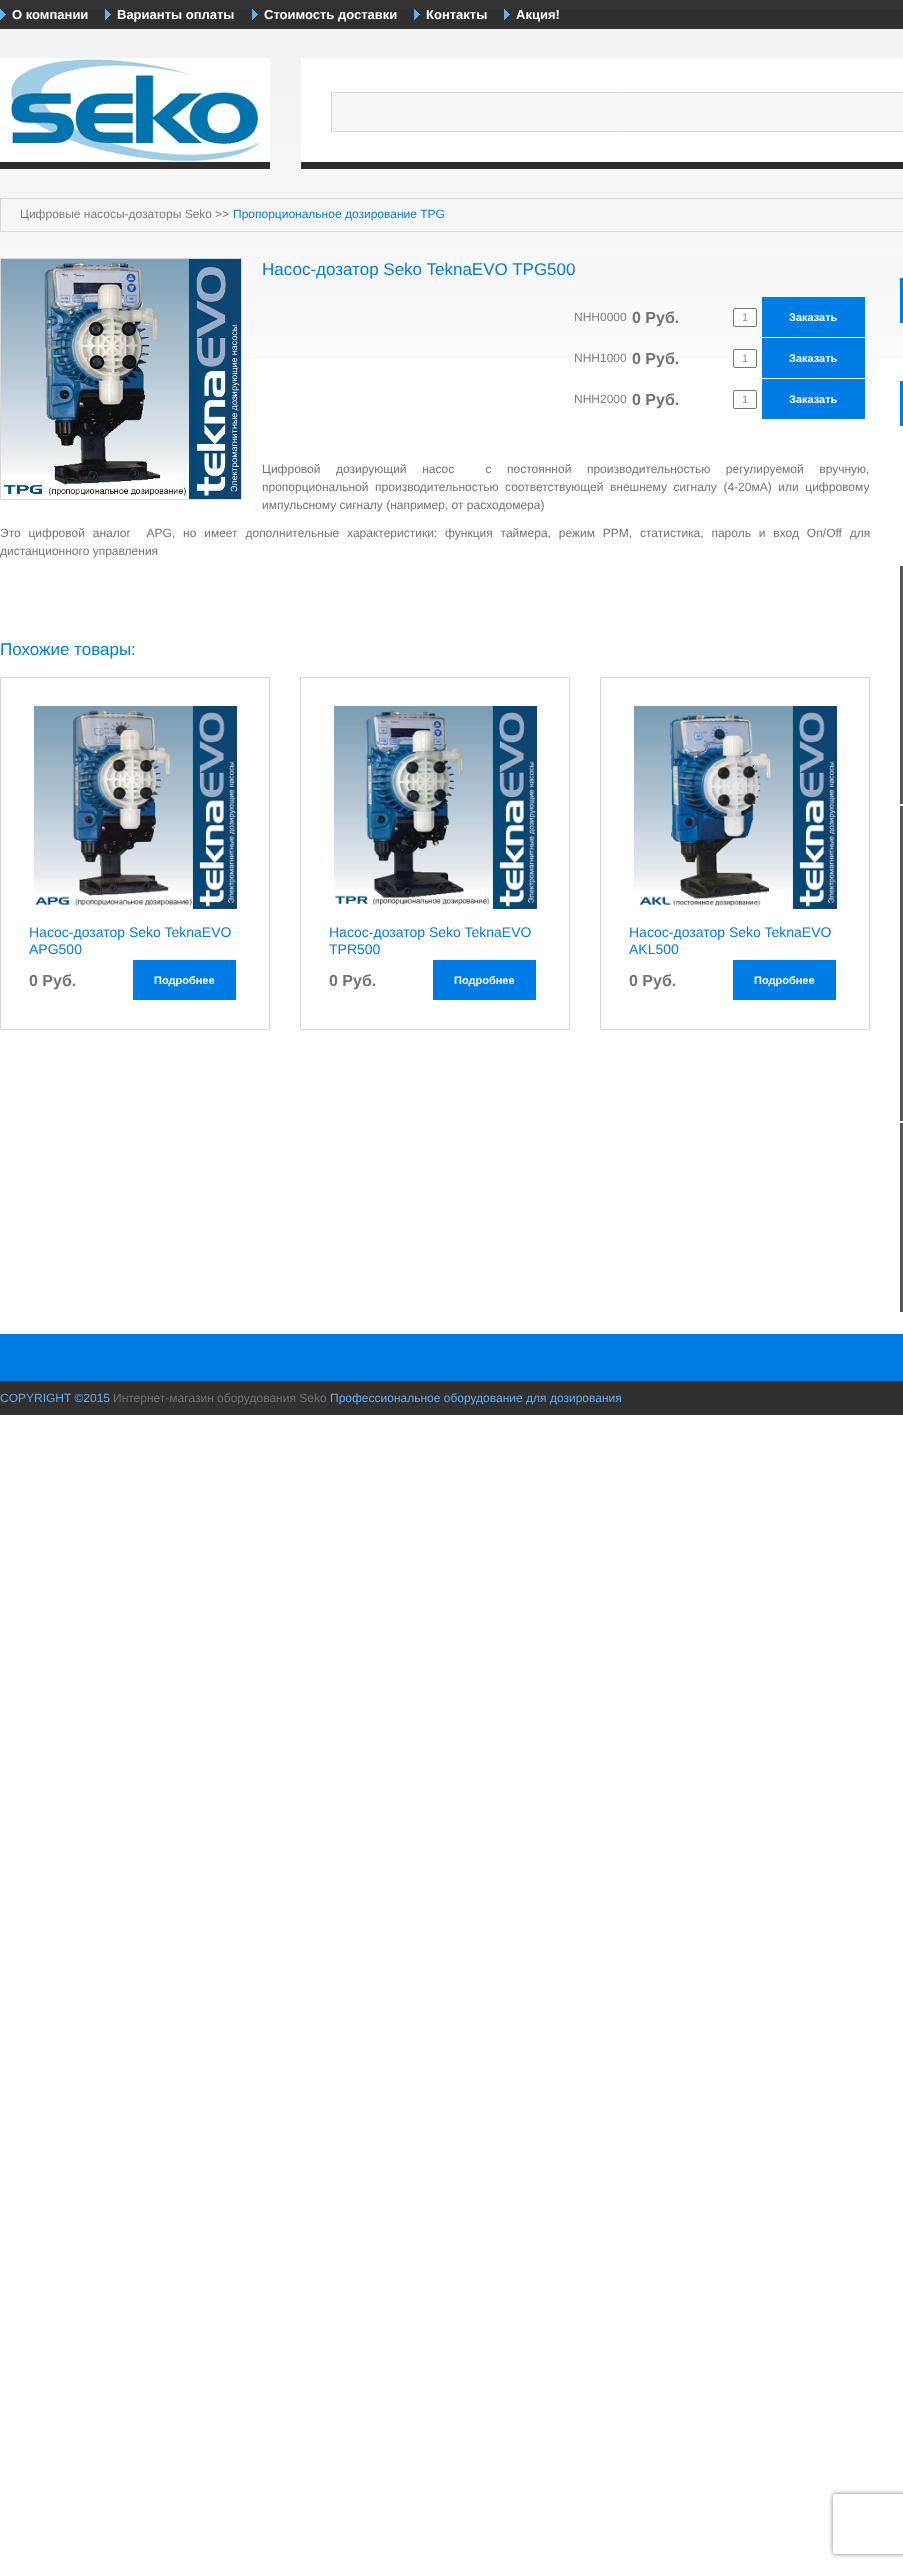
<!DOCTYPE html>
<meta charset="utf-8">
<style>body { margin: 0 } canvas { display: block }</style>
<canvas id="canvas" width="903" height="2568"></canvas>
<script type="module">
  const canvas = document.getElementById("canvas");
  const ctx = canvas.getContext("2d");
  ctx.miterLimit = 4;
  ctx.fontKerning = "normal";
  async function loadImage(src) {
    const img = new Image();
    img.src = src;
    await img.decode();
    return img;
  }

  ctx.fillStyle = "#ffffff";
  ctx.fillRect(0, 0, 903, 2568);
  ctx.drawImage(await loadImage("img1.png"), 0, 0, 903, 359);
  ctx.drawImage(await loadImage("img2.png"), 0, 9, 6, 11);
  ctx.font = "bold 13px Liberation Sans";
  ctx.fillText("О компании", 12, 19);
  ctx.drawImage(await loadImage("img2.png"), 105, 9, 6, 11);
  ctx.fillText("Варианты оплаты", 117, 19);
  ctx.drawImage(await loadImage("img2.png"), 252, 9, 6, 11);
  ctx.fillText("Стоимость доставки", 264, 19);
  ctx.drawImage(await loadImage("img2.png"), 414, 9, 6, 11);
  ctx.fillText("Контакты", 426, 19);
  ctx.drawImage(await loadImage("img2.png"), 504, 9, 6, 11);
  ctx.fillText("Акция!", 516, 19);
  ctx.drawImage(await loadImage("img3.png"), 0, 58, 270, 111);
  ctx.fillRect(301, 58, 602, 104);
  ctx.fillStyle = "#2d2d2d";
  ctx.fillRect(301, 162, 602, 7);
  ctx.fillStyle = "#f7f7f7";
  ctx.beginPath();
  ctx.rect(331.5, 92.5, 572, 39);
  ctx.fill();
  ctx.strokeStyle = "#d9d9d9";
  ctx.stroke();
  ctx.strokeRect(0.5, 198.5, 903, 33);
  ctx.font = "12px Liberation Sans";
  ctx.fillStyle = "#7b7b7b";
  ctx.fillText("Цифровые насосы-дозаторы Seko", 20, 218);
  ctx.fillStyle = "#737373";
  ctx.fillText(">>", 215, 218);
  ctx.fillStyle = "#007ce5";
  ctx.fillText("Пропорциональное дозирование TPG", 233, 218);
  ctx.strokeRect(0.5, 258.5, 241, 241);
  ctx.drawImage(await loadImage("img4.png"), 1, 259, 240, 240);
  ctx.font = "17px Liberation Sans";
  ctx.fillText("Насос-дозатор Seko TeknaEVO TPG500", 262, 275);
  ctx.font = "12px Liberation Sans";
  ctx.fillStyle = "#7a7d82";
  ctx.fillText("NHH0000", 574, 321);
  ctx.font = "bold 16px Liberation Sans";
  ctx.fillStyle = "#737373";
  ctx.fillText("0 Руб.", 632, 323);
  ctx.fillStyle = "#ffffff";
  ctx.beginPath();
  ctx.roundRect(733.5, 308.5, 23, 18, 1.5);
  ctx.fill();
  ctx.strokeStyle = "#767676";
  ctx.stroke();
  ctx.font = "11px Liberation Sans";
  ctx.fillStyle = "#8a8989";
  ctx.fillText("1", 742, 321);
  ctx.fillStyle = "#007ce5";
  ctx.fillRect(762, 297, 103, 40);
  ctx.font = "bold 11px Liberation Sans";
  ctx.fillStyle = "#ffffff";
  ctx.fillText("Заказать", 789, 321);
  ctx.font = "12px Liberation Sans";
  ctx.fillStyle = "#7a7d82";
  ctx.fillText("NHH1000", 574, 362);
  ctx.font = "bold 16px Liberation Sans";
  ctx.fillStyle = "#737373";
  ctx.fillText("0 Руб.", 632, 364);
  ctx.fillStyle = "#ffffff";
  ctx.beginPath();
  ctx.roundRect(733.5, 349.5, 23, 18, 1.5);
  ctx.fill();
  ctx.stroke();
  ctx.font = "11px Liberation Sans";
  ctx.fillStyle = "#8a8989";
  ctx.fillText("1", 742, 362);
  ctx.fillStyle = "#007ce5";
  ctx.fillRect(762, 338, 103, 40);
  ctx.font = "bold 11px Liberation Sans";
  ctx.fillStyle = "#ffffff";
  ctx.fillText("Заказать", 789, 362);
  ctx.font = "12px Liberation Sans";
  ctx.fillStyle = "#7a7d82";
  ctx.fillText("NHH2000", 574, 403);
  ctx.font = "bold 16px Liberation Sans";
  ctx.fillStyle = "#737373";
  ctx.fillText("0 Руб.", 632, 405);
  ctx.beginPath();
  ctx.roundRect(733.5, 390.5, 23, 18, 1.5);
  ctx.stroke();
  ctx.font = "11px Liberation Sans";
  ctx.fillStyle = "#8a8989";
  ctx.fillText("1", 742, 403);
  ctx.fillStyle = "#007ce5";
  ctx.fillRect(762, 379, 103, 40);
  ctx.font = "bold 11px Liberation Sans";
  ctx.fillStyle = "#ffffff";
  ctx.fillText("Заказать", 789, 403);
  ctx.wordSpacing = "12.25px";
  ctx.font = "12px Liberation Sans";
  ctx.fillStyle = "#737373";
  ctx.fillText("Цифровой дозирующий насос  с постоянной производительностью регулируемой вручную,", 262, 473);
  ctx.wordSpacing = "3.25px";
  ctx.fillText("пропорциональной производительностью соответствующей внешнему сигналу (4-20мА) или цифровому", 262, 491);
  ctx.wordSpacing = "0px";
  ctx.fillText("импульсному сигналу (например, от расходомера)", 262, 509);
  ctx.wordSpacing = "4.5px";
  ctx.fillText("Это цифровой аналог  APG, но имеет дополнительные характеристики: функция таймера, режим PPM, статистика, пароль и вход On/Off для", 0, 537);
  ctx.wordSpacing = "0px";
  ctx.fillText("дистанционного управления", 0, 555);
  ctx.font = "17px Liberation Sans";
  ctx.fillStyle = "#007ce5";
  ctx.fillText("Похожие товары:", 0, 655);
  ctx.strokeStyle = "#d9d9d9";
  ctx.strokeRect(0.5, 677.5, 269, 352);
  ctx.drawImage(await loadImage("img5.png"), 34, 706, 203, 203);
  ctx.font = "14px Liberation Sans";
  ctx.fillText("Насос-дозатор Seko TeknaEVO", 29, 937);
  ctx.fillText("APG500", 29, 954);
  ctx.font = "bold 16px Liberation Sans";
  ctx.fillStyle = "#737373";
  ctx.fillText("0 Руб.", 29, 986);
  ctx.fillStyle = "#007ce5";
  ctx.fillRect(133, 960, 103, 40);
  ctx.font = "bold 11px Liberation Sans";
  ctx.fillStyle = "#ffffff";
  ctx.fillText("Подробнее", 154, 984);
  ctx.strokeRect(300.5, 677.5, 269, 352);
  ctx.drawImage(await loadImage("img6.png"), 334, 706, 203, 203);
  ctx.font = "14px Liberation Sans";
  ctx.fillStyle = "#007ce5";
  ctx.fillText("Насос-дозатор Seko TeknaEVO", 329, 937);
  ctx.fillText("TPR500", 329, 954);
  ctx.font = "bold 16px Liberation Sans";
  ctx.fillStyle = "#737373";
  ctx.fillText("0 Руб.", 329, 986);
  ctx.fillStyle = "#007ce5";
  ctx.fillRect(433, 960, 103, 40);
  ctx.font = "bold 11px Liberation Sans";
  ctx.fillStyle = "#ffffff";
  ctx.fillText("Подробнее", 454, 984);
  ctx.strokeRect(600.5, 677.5, 269, 352);
  ctx.drawImage(await loadImage("img7.png"), 634, 706, 203, 203);
  ctx.font = "14px Liberation Sans";
  ctx.fillStyle = "#007ce5";
  ctx.fillText("Насос-дозатор Seko TeknaEVO", 629, 937);
  ctx.fillText("AKL500", 629, 954);
  ctx.font = "bold 16px Liberation Sans";
  ctx.fillStyle = "#737373";
  ctx.fillText("0 Руб.", 629, 986);
  ctx.fillStyle = "#007ce5";
  ctx.fillRect(733, 960, 103, 40);
  ctx.font = "bold 11px Liberation Sans";
  ctx.fillStyle = "#ffffff";
  ctx.fillText("Подробнее", 754, 984);
  ctx.fillStyle = "#007ce5";
  ctx.fillRect(900, 278, 3, 45);
  ctx.fillRect(900, 381, 3, 45);
  ctx.fillStyle = "#575757";
  ctx.fillRect(900, 566, 3, 238);
  ctx.fillRect(900, 806, 3, 315);
  ctx.fillRect(900, 1123, 3, 189);
  ctx.fillStyle = "#007ce5";
  ctx.fillRect(0, 1334, 903, 47);
  ctx.fillStyle = "#303030";
  ctx.fillRect(0, 1381, 903, 34);
  ctx.font = "12px Liberation Sans";
  ctx.fillStyle = "#5daff5";
  ctx.fillText("COPYRIGHT ©2015", 0, 1402);
  ctx.fillStyle = "#737373";
  ctx.fillText("Интернет-магазин оборудования Seko", 113, 1402);
  ctx.fillStyle = "#5daff5";
  ctx.fillText("Профессиональное оборудование для дозирования", 330, 1402);
  ctx.save();
  ctx.beginPath();
  ctx.moveTo(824, 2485);
  ctx.lineTo(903, 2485);
  ctx.lineTo(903, 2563);
  ctx.lineTo(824, 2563);
  ctx.closePath();
  ctx.moveTo(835, 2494);
  ctx.lineTo(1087, 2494);
  ctx.bezierCurveTo(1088, 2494, 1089, 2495, 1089, 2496);
  ctx.lineTo(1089, 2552);
  ctx.bezierCurveTo(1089, 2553, 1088, 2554, 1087, 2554);
  ctx.lineTo(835, 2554);
  ctx.bezierCurveTo(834, 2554, 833, 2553, 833, 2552);
  ctx.lineTo(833, 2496);
  ctx.bezierCurveTo(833, 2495, 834, 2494, 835, 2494);
  ctx.closePath();
  ctx.clip("evenodd");
  ctx.fillStyle = "#808080";
  ctx.filter = "blur(2.5px)";
  ctx.beginPath();
  ctx.roundRect(833, 2494, 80, 60, 2);
  ctx.fill();
  ctx.filter = "none";
  ctx.restore();
</script>
